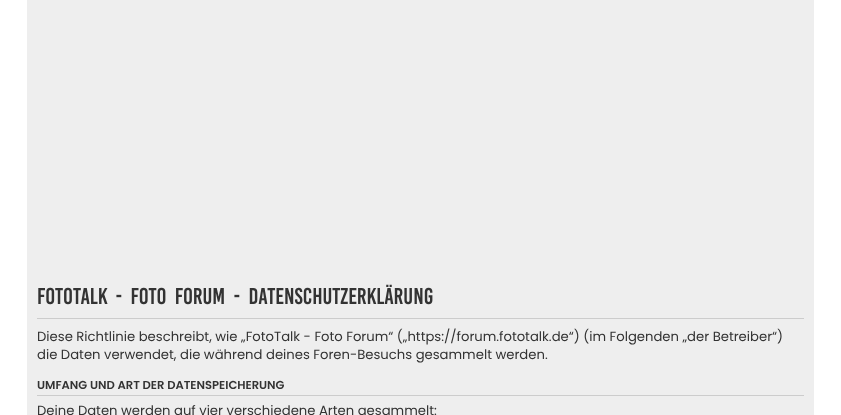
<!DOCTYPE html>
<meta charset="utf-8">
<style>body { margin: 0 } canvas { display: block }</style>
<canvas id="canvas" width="841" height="415"></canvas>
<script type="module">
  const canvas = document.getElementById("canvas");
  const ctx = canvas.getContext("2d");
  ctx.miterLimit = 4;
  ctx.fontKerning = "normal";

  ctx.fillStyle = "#ffffff";
  ctx.fillRect(0, 0, 841, 415);
  ctx.fillStyle = "#eeeeee";
  ctx.fillRect(27, 0, 787, 415);
  ctx.fillStyle = "#cccccc";
  ctx.fillRect(37, 318, 767, 1);
  ctx.wordSpacing = "4px";
  ctx.font = "17.6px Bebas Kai";
  ctx.fillStyle = "#333333";
  ctx.fillText("FotoTalk - Foto Forum - Datenschutzerklärung", 37, 304);
  ctx.wordSpacing = "0px";
  ctx.font = "13.2px Poppins";
  ctx.fillText("Diese Richtlinie beschreibt, wie „FotoTalk - Foto Forum“ („https://forum.fototalk.de“) (im Folgenden „der Betreiber“)", 37, 341);
  ctx.fillText("die Daten verwendet, die während deines Foren-Besuchs gesammelt werden.", 37, 359);
  ctx.fillStyle = "#cccccc";
  ctx.fillRect(37, 395, 767, 1);
  ctx.font = "600 11.55px Poppins";
  ctx.fillStyle = "#333333";
  ctx.fillText("UMFANG UND ART DER DATENSPEICHERUNG", 37, 389);
  ctx.font = "13.2px Poppins";
  ctx.fillText("Deine Daten werden auf vier verschiedene Arten gesammelt:", 37, 415);
</script>
